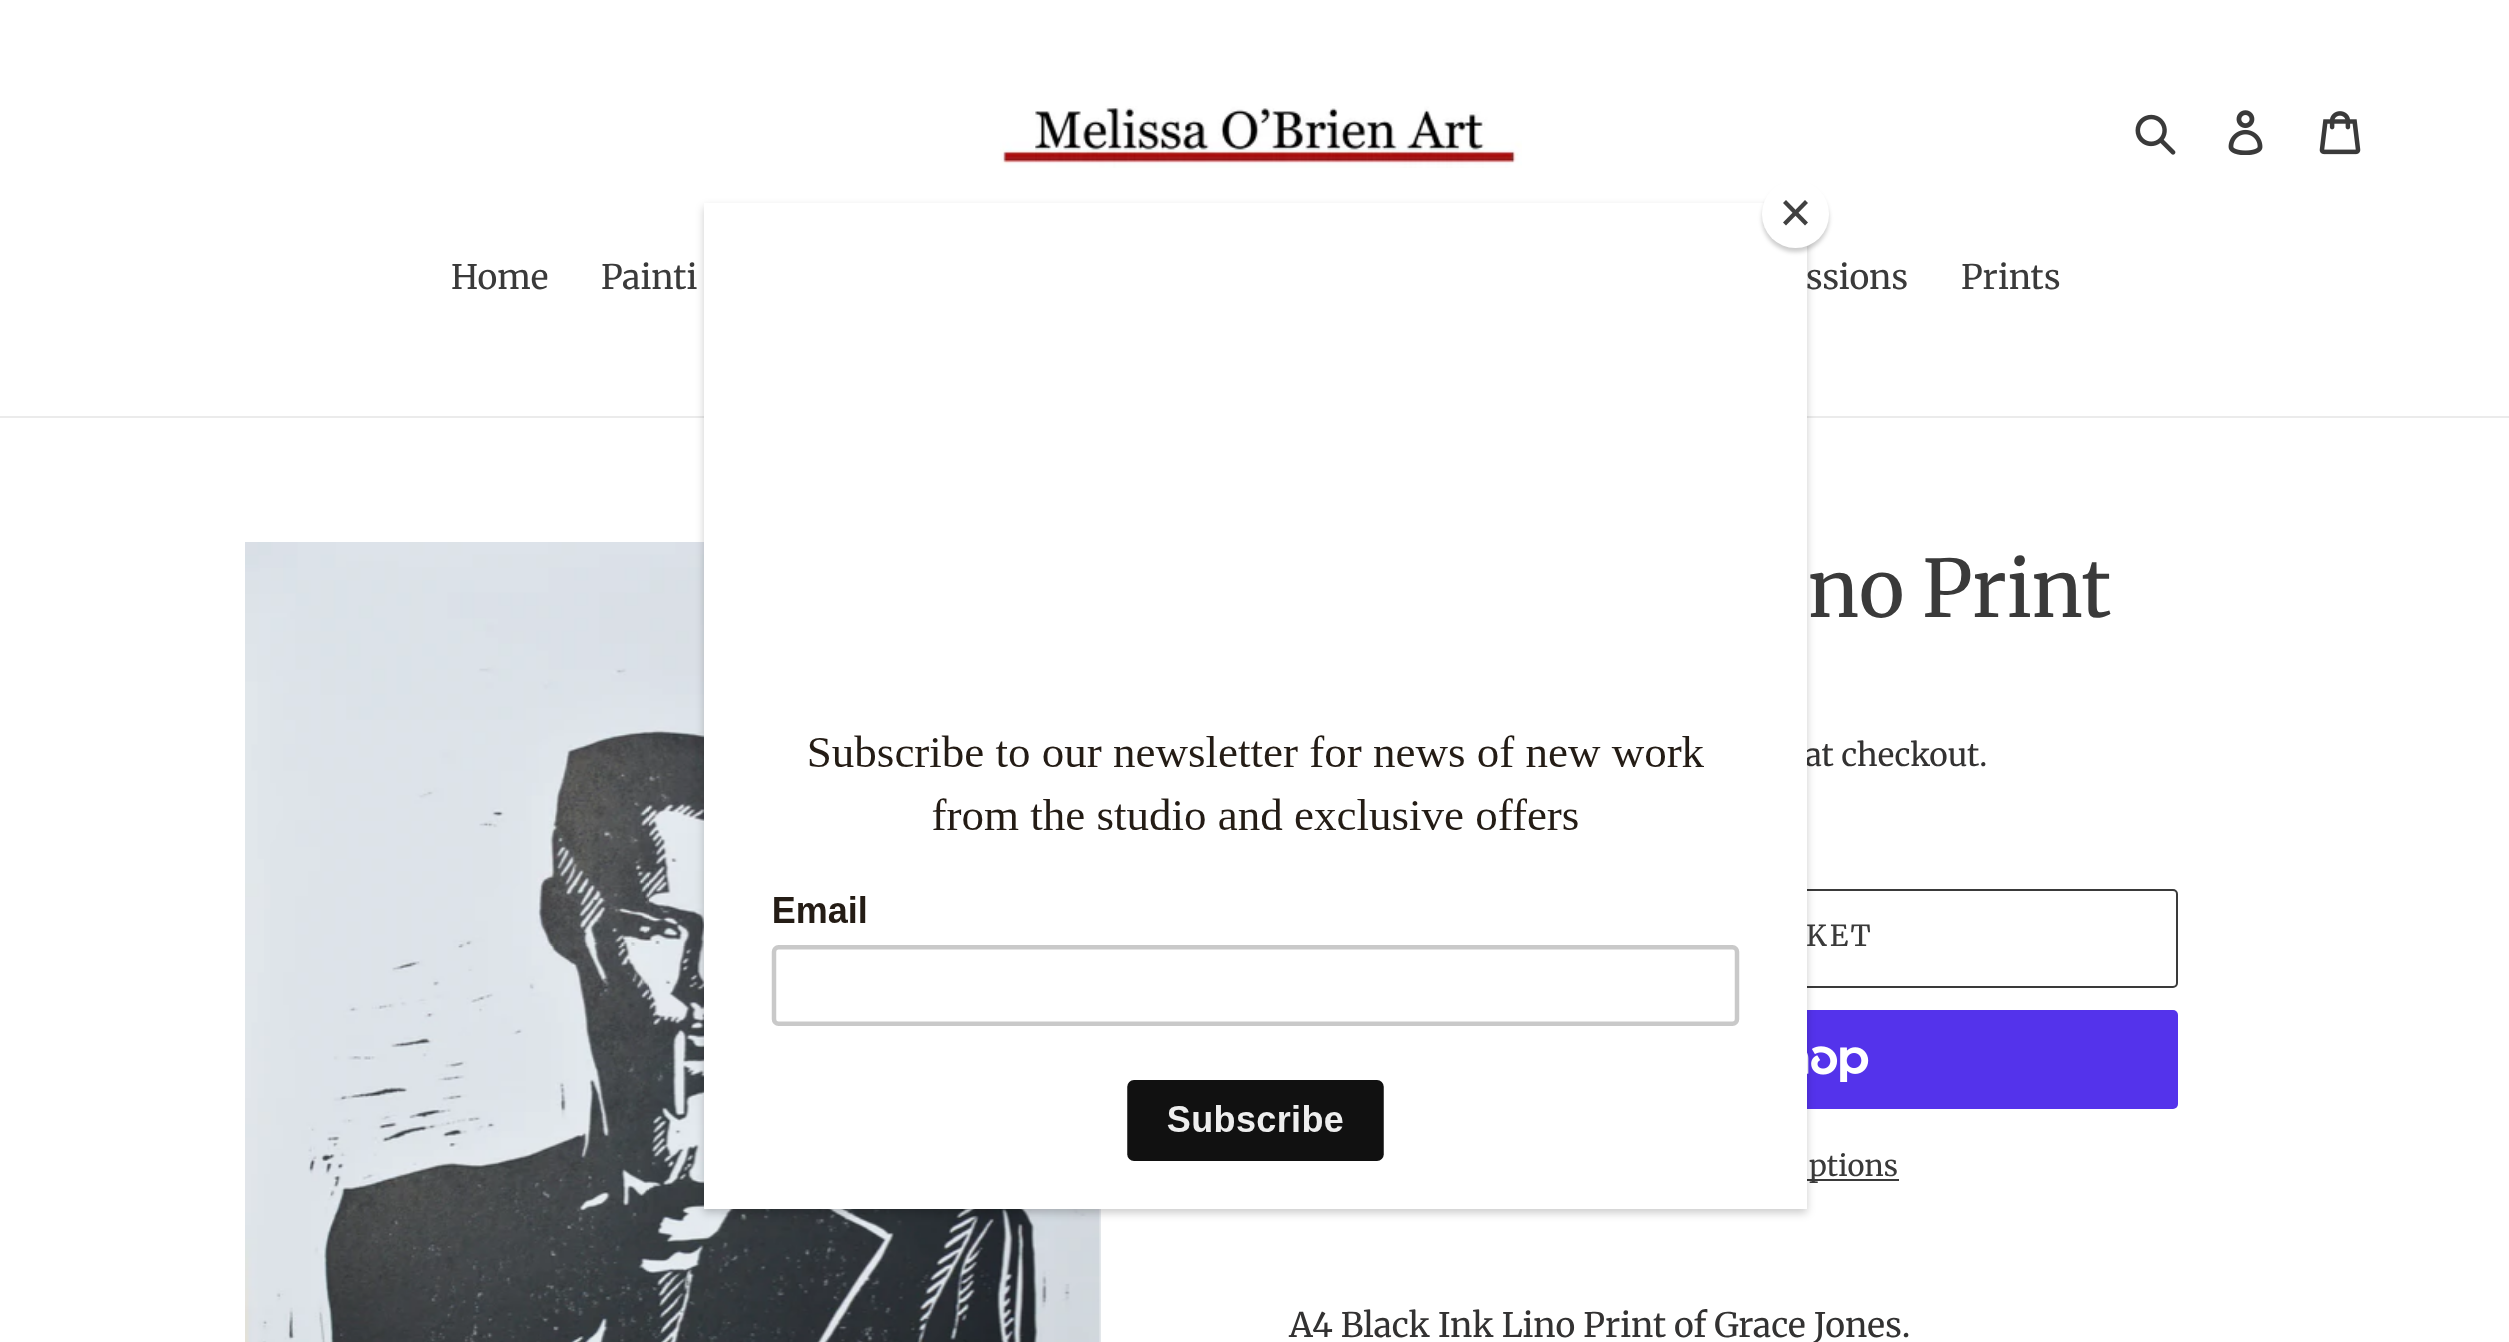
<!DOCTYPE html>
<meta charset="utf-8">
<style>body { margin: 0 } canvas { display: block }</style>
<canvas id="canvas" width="2509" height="1342"></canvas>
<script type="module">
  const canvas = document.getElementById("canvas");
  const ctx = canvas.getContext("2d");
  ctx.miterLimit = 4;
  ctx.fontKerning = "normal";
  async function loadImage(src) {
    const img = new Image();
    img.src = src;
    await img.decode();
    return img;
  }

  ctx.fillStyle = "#ffffff";
  ctx.fillRect(0, 0, 2509, 1342);
  ctx.fillStyle = "#ebebeb";
  ctx.fillRect(0, 416, 2509, 2);
  ctx.drawImage(await loadImage("img6.png"), 245, 542, 856, 800);
  ctx.beginPath();
  ctx.roundRect(1302, 890, 875, 97, 4);
  ctx.strokeStyle = "#3a3a3a";
  ctx.lineWidth = 2;
  ctx.stroke();
  ctx.fillStyle = "#5433eb";
  ctx.beginPath();
  ctx.roundRect(1301, 1010, 877, 99, 5);
  ctx.fill();
  ctx.drawImage(await loadImage("img7.png"), 1807, 1046, 62, 36);
  ctx.fillStyle = "#3a3a3a";
  ctx.fillRect(1807, 1179, 92, 2);
  ctx.save();
  ctx.beginPath();
  ctx.moveTo(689, 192);
  ctx.lineTo(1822, 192);
  ctx.lineTo(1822, 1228);
  ctx.lineTo(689, 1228);
  ctx.closePath();
  ctx.moveTo(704, 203);
  ctx.lineTo(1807, 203);
  ctx.lineTo(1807, 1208);
  ctx.lineTo(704, 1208);
  ctx.closePath();
  ctx.clip("evenodd");
  ctx.fillStyle = "rgba(0, 0, 0, 0.2)";
  ctx.filter = "blur(4.5px)";
  ctx.beginPath();
  ctx.rect(704, 207, 1103, 1006);
  ctx.fill();
  ctx.filter = "none";
  ctx.restore();
  ctx.font = "31.5px Merriweather";
  ctx.fillStyle = "#333232";
  ctx.fillText("at checkout.", 1805, 766);
  ctx.letterSpacing = "2.5px";
  ctx.font = "29px Merriweather";
  ctx.fillStyle = "#3a3a3a";
  ctx.fillText("KET", 1806, 946);
  ctx.drawImage(await loadImage("img1.png"), 704, 208, 1103, 1001);
  ctx.fillStyle = "rgba(0, 0, 0, 0.2)";
  ctx.filter = "blur(2px)";
  ctx.beginPath();
  ctx.roundRect(1762, 185, 67, 67, 33.5);
  ctx.fill();
  ctx.filter = "none";
  ctx.fillStyle = "#ffffff";
  ctx.beginPath();
  ctx.roundRect(1762, 180, 67, 68, 33.5);
  ctx.fill();
  ctx.fillStyle = "#414141";
  ctx.beginPath();
  ctx.moveTo(1805, 200);
  ctx.lineTo(1808, 203);
  ctx.lineTo(1786, 225.5);
  ctx.lineTo(1783, 222.5);
  ctx.closePath();
  ctx.fill();
  ctx.beginPath();
  ctx.moveTo(1783, 203);
  ctx.lineTo(1786, 200);
  ctx.lineTo(1808, 222.5);
  ctx.lineTo(1805, 225.5);
  ctx.closePath();
  ctx.fill();
  ctx.drawImage(await loadImage("img2.png"), 1000, 106, 522, 62);
  ctx.drawImage(await loadImage("img3.png"), 2135, 114, 41, 41);
  ctx.drawImage(await loadImage("img4.png"), 2228, 110, 35, 45);
  ctx.drawImage(await loadImage("img5.png"), 2319, 111, 42, 44);
  ctx.letterSpacing = "0px";
  ctx.font = "33.75px Merriweather";
  ctx.fillStyle = "#3a3a3a";
  ctx.fillText("Home", 451, 289);
  ctx.fillText("Painti", 601, 289);
  ctx.fillText("ssions", 1806, 289);
  ctx.fillText("Prints", 1961, 289);
  ctx.font = "79px 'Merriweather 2'";
  ctx.fillText("no Print", 1808, 617);
  ctx.font = "29px Merriweather";
  ctx.fillText("ptions", 1809, 1176);
  ctx.font = "33.75px Merriweather";
  ctx.fillStyle = "#333232";
  ctx.fillText("A4 Black Ink Lino Print of Grace Jones.", 1289, 1337);
</script>
